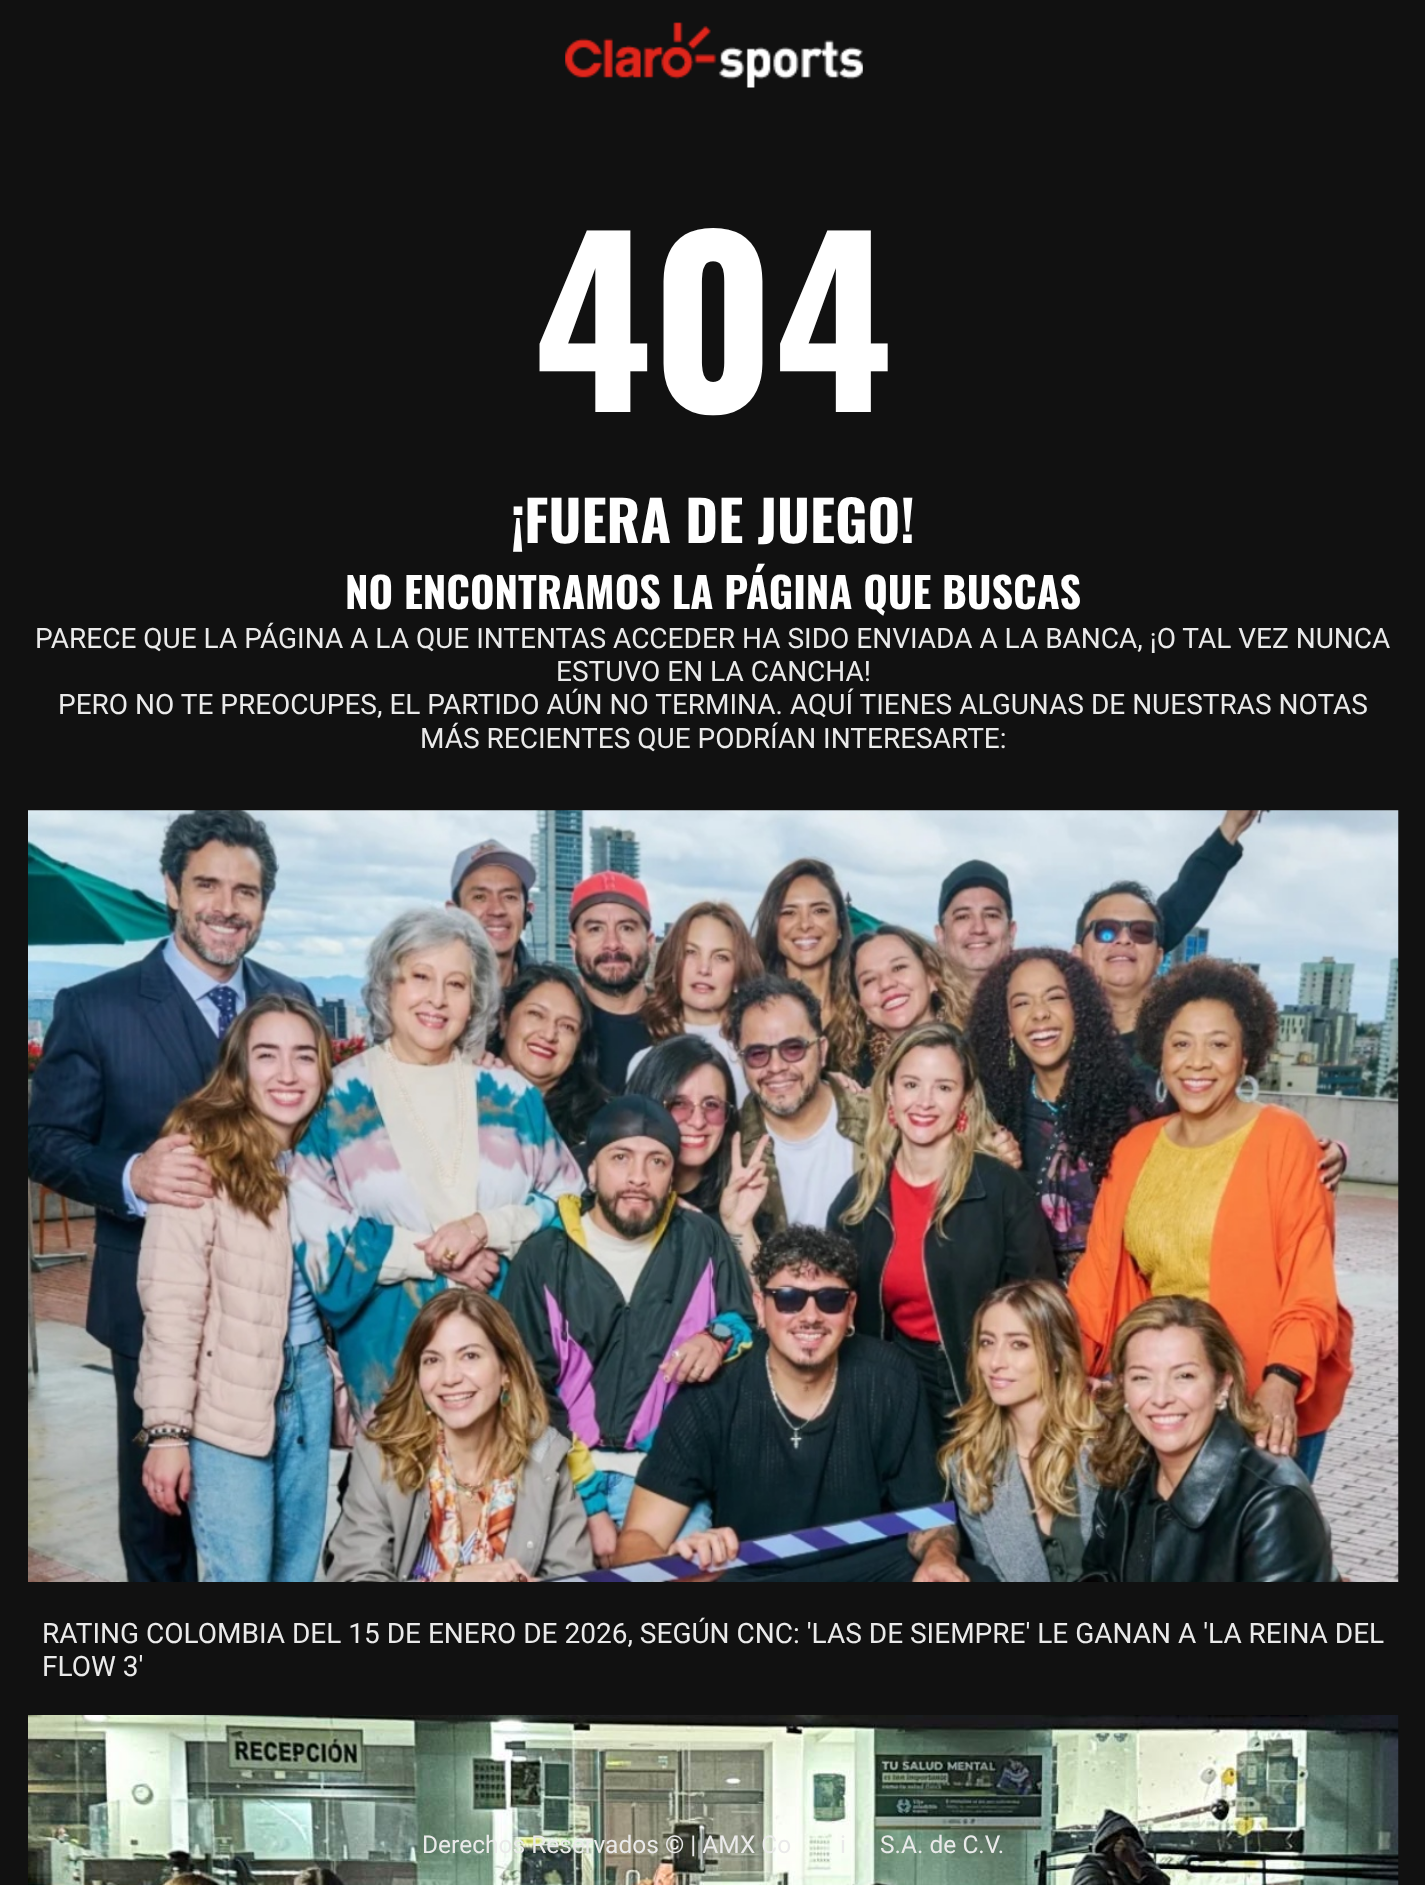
<!DOCTYPE html>
<meta charset="utf-8">
<style>body { margin: 0 } canvas { display: block }</style>
<canvas id="canvas" width="1425" height="1885"></canvas>
<script type="module">
  const canvas = document.getElementById("canvas");
  const ctx = canvas.getContext("2d");
  ctx.miterLimit = 4;
  ctx.fontKerning = "normal";
  async function loadImage(src) {
    const img = new Image();
    img.src = src;
    await img.decode();
    return img;
  }

  ctx.fillStyle = "#111111";
  ctx.fillRect(0, 0, 1425, 1885);
  ctx.drawImage(await loadImage("img1.png"), 565, 22, 298, 66);
  ctx.font = "bold 224px Oswald";
  ctx.fillStyle = "#ffffff";
  ctx.fillText("404", 534, 412);
  ctx.font = "bold 56px Oswald";
  ctx.fillText("¡FUERA DE JUEGO!", 511, 543);
  ctx.font = "bold 42px Oswald";
  ctx.fillText("NO ENCONTRAMOS LA PÁGINA QUE BUSCAS", 345, 609);
  ctx.font = "28px Roboto";
  ctx.fillStyle = "#eaeaea";
  ctx.fillText("PARECE QUE LA PÁGINA A LA QUE INTENTAS ACCEDER HA SIDO ENVIADA A LA BANCA, ¡O TAL VEZ NUNCA", 35, 648);
  ctx.fillText("ESTUVO EN LA CANCHA!", 556, 681);
  ctx.fillText("PERO NO TE PREOCUPES, EL PARTIDO AÚN NO TERMINA. AQUÍ TIENES ALGUNAS DE NUESTRAS NOTAS", 58, 714);
  ctx.fillText("MÁS RECIENTES QUE PODRÍAN INTERESARTE:", 420, 748);
  ctx.drawImage(await loadImage("img2.png"), 28, 810, 1371, 772);
  ctx.fillText("RATING COLOMBIA DEL 15 DE ENERO DE 2026, SEGÚN CNC: 'LAS DE SIEMPRE' LE GANAN A 'LA REINA DEL", 42, 1643);
  ctx.fillText("FLOW 3'", 42, 1676);
  ctx.drawImage(await loadImage("img3.png"), 28, 1715, 1371, 170);
  ctx.font = "24.5px Roboto";
  ctx.fillText("Derechos Reservados © | AMX Co", 422, 1853);
  ctx.fillText("i", 840, 1853);
  ctx.fillText("S.A. de C.V.", 880, 1853);
</script>
